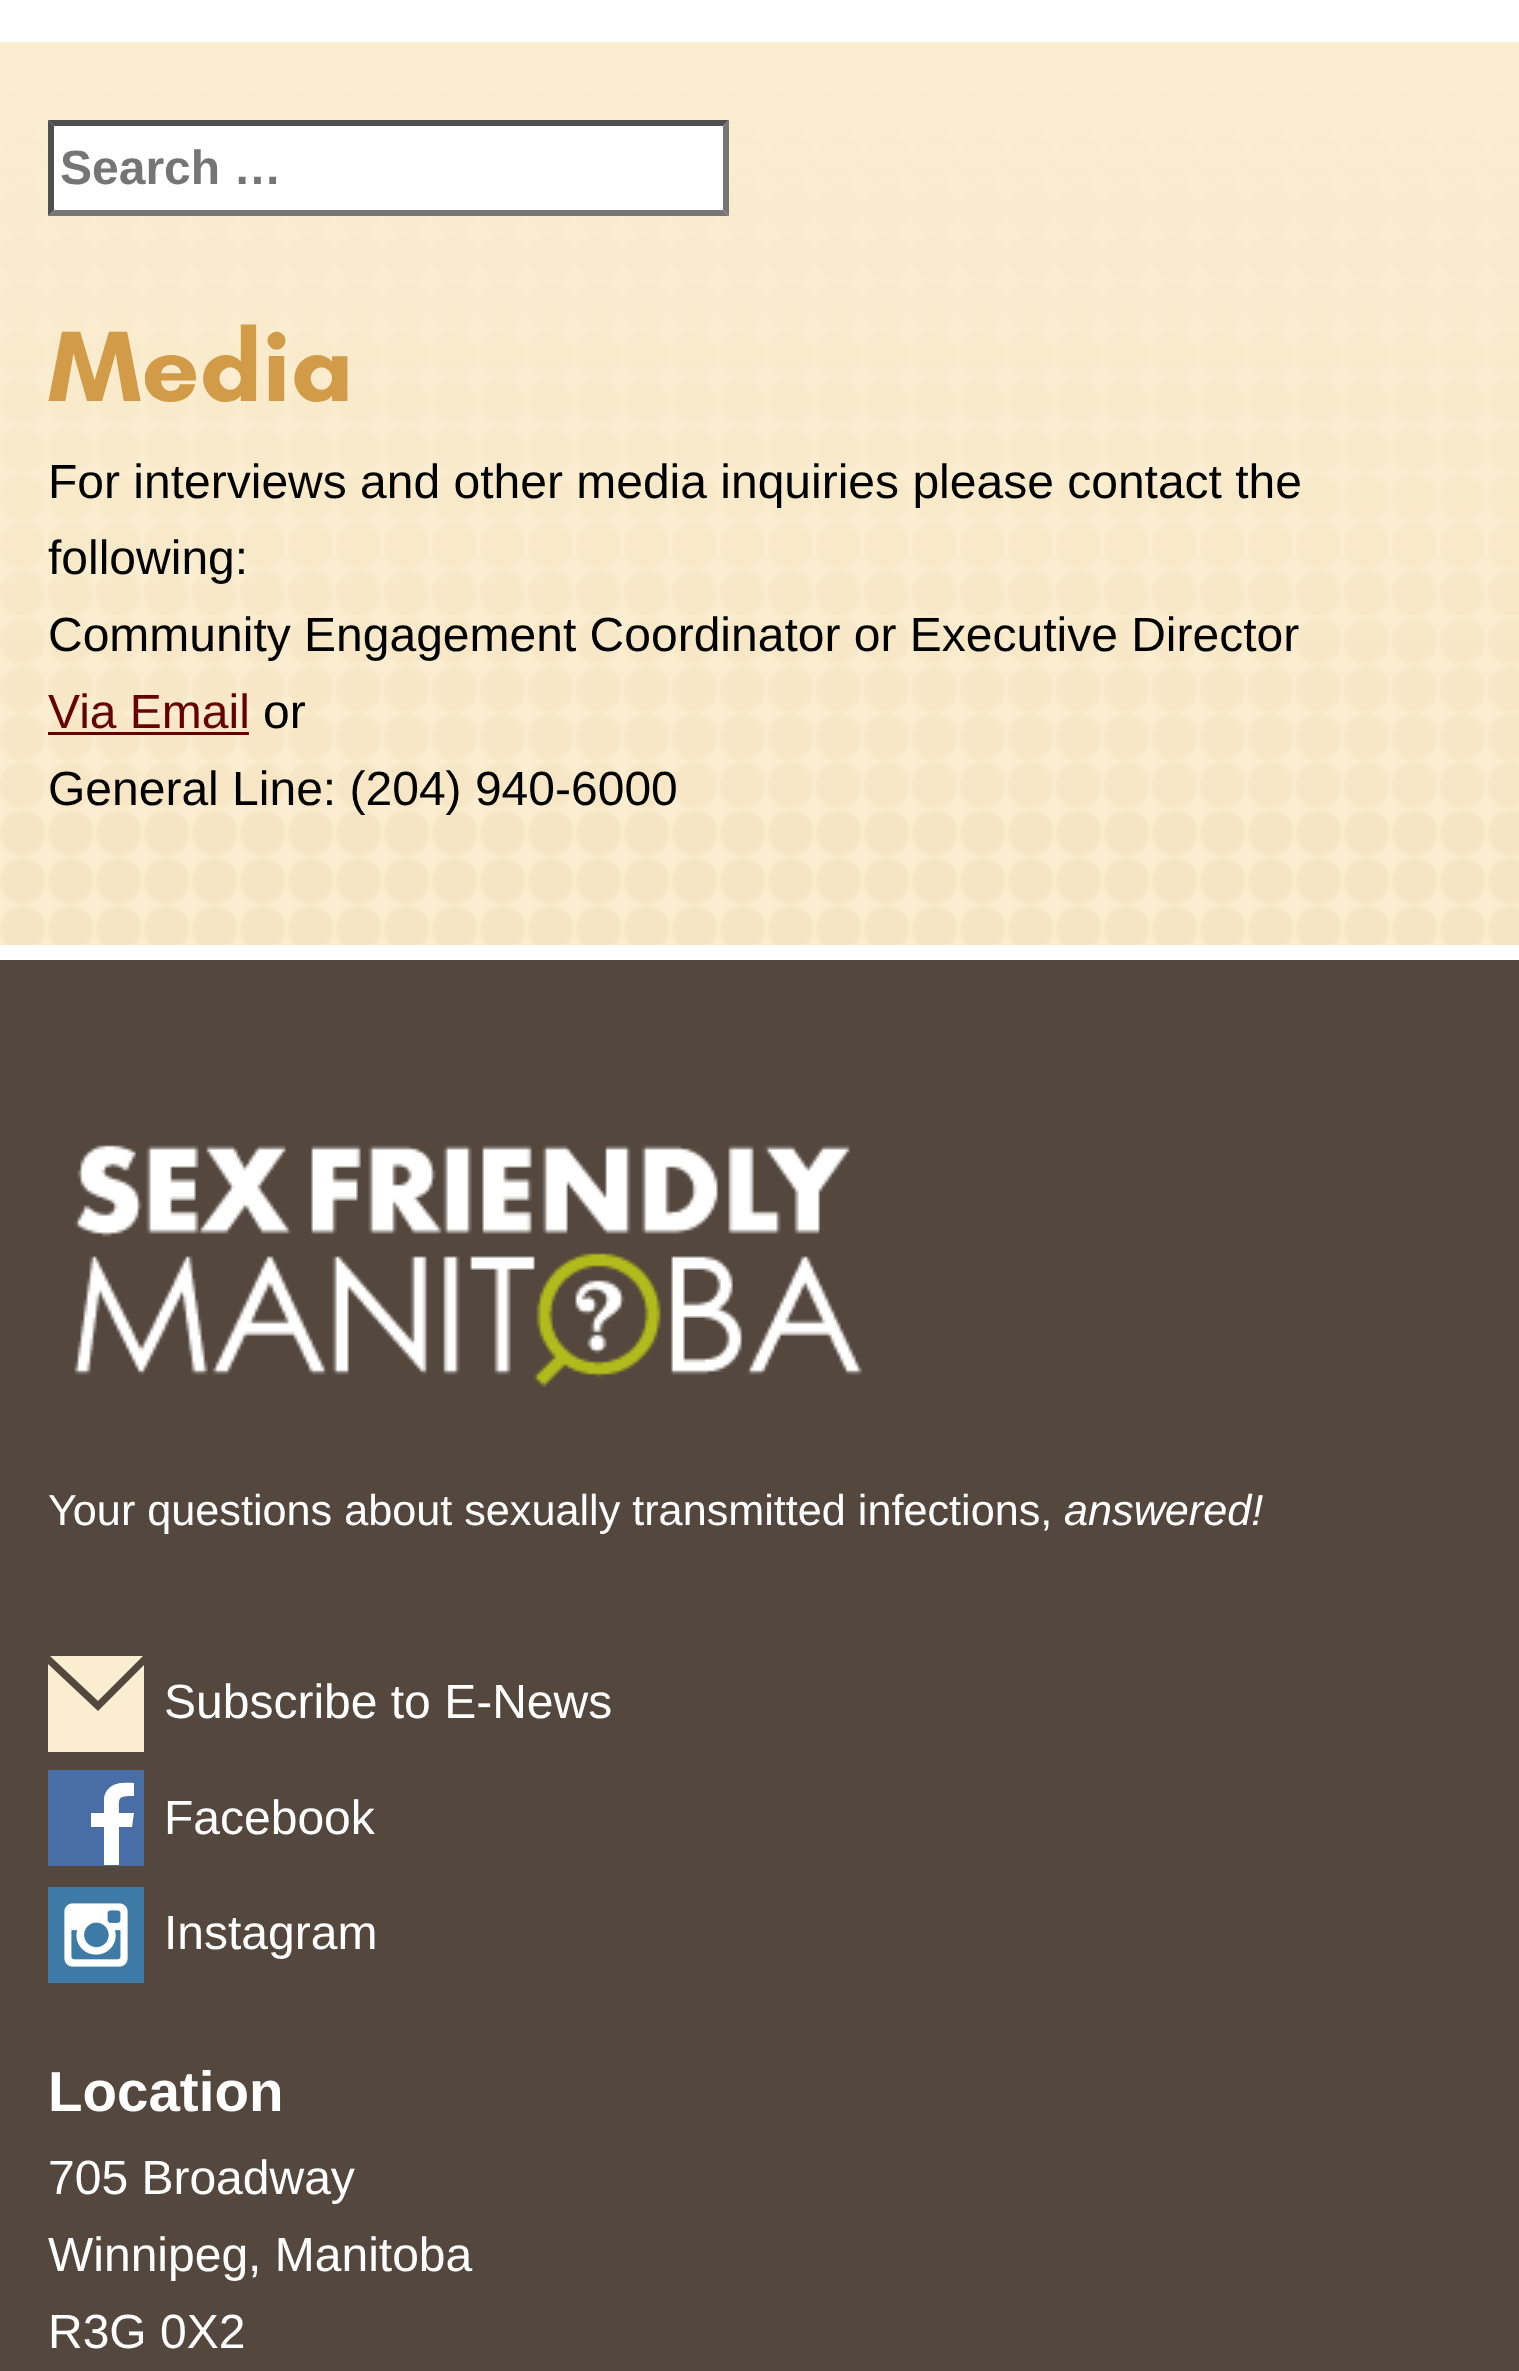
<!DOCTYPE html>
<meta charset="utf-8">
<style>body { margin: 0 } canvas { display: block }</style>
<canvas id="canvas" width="1519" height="2371"></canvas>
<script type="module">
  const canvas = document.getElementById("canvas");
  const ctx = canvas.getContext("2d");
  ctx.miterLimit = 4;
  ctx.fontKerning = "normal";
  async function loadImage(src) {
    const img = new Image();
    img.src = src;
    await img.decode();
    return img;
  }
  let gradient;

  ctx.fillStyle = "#ffffff";
  ctx.fillRect(0, 0, 1519, 2371);
  ctx.fillStyle = "#faedd0";
  ctx.fillRect(0, 46, 1519, 899);
  ctx.drawImage(await loadImage("img1.png"), 0, 46, 1519, 899);
  gradient = ctx.createLinearGradient(760, 42, 761, 945);
  gradient.addColorStop(0, "#faedd0");
  gradient.addColorStop(1, "rgba(250, 237, 208, 0)");
  ctx.fillStyle = gradient;
  ctx.fillRect(0, 42, 1519, 771);
  ctx.fillStyle = "#ffffff";
  ctx.fillRect(48, 120, 681, 96);
  ctx.fillStyle = "#4f4f4f";
  ctx.beginPath();
  ctx.moveTo(48, 120);
  ctx.lineTo(729, 120);
  ctx.lineTo(723, 126);
  ctx.lineTo(54, 126);
  ctx.closePath();
  ctx.fill();
  ctx.fillStyle = "#767676";
  ctx.beginPath();
  ctx.moveTo(729, 120);
  ctx.lineTo(729, 216);
  ctx.lineTo(723, 210);
  ctx.lineTo(723, 126);
  ctx.closePath();
  ctx.fill();
  ctx.beginPath();
  ctx.moveTo(729, 216);
  ctx.lineTo(48, 216);
  ctx.lineTo(54, 210);
  ctx.lineTo(723, 210);
  ctx.closePath();
  ctx.fill();
  ctx.fillStyle = "#4f4f4f";
  ctx.beginPath();
  ctx.moveTo(48, 216);
  ctx.lineTo(48, 120);
  ctx.lineTo(54, 126);
  ctx.lineTo(54, 210);
  ctx.closePath();
  ctx.fill();
  ctx.font = "bold 48px Liberation Sans";
  ctx.fillStyle = "#757575";
  ctx.fillText("Search …", 60, 184);
  ctx.font = "bold 102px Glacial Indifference";
  ctx.fillStyle = "#d19b48";
  ctx.fillText("Media", 48, 401);
  ctx.font = "48px Liberation Sans";
  ctx.fillStyle = "#000000";
  ctx.fillText("For interviews and other media inquiries please contact the", 48, 498);
  ctx.fillText("following:", 48, 574);
  ctx.fillText("Community Engagement Coordinator or Executive Director", 48, 651);
  ctx.fillStyle = "#660000";
  ctx.fillText("Via Email", 48, 728);
  ctx.fillRect(48, 732, 201, 3);
  ctx.fillStyle = "#000000";
  ctx.fillText("or", 263, 728);
  ctx.fillText("General Line: (204) 940-6000", 48, 805);
  ctx.fillStyle = "#54483e";
  ctx.fillRect(0, 960, 1519, 1411);
  ctx.drawImage(await loadImage("img2.png"), 74, 1145, 788, 242);
  ctx.font = "43.2px Liberation Sans";
  ctx.fillStyle = "#ffffff";
  ctx.fillText("Your questions about sexually transmitted infections,", 48, 1525);
  ctx.font = "italic 43.2px Liberation Sans";
  ctx.fillText("answered!", 1064, 1525);
  ctx.fillStyle = "#faedd0";
  ctx.beginPath();
  ctx.moveTo(143, 1656);
  ctx.lineTo(50, 1656);
  ctx.lineTo(98, 1701);
  ctx.closePath();
  ctx.fill();
  ctx.beginPath();
  ctx.moveTo(98, 1711);
  ctx.lineTo(48, 1664);
  ctx.lineTo(48, 1752);
  ctx.lineTo(144, 1752);
  ctx.lineTo(144, 1665);
  ctx.closePath();
  ctx.fill();
  ctx.font = "48px Liberation Sans";
  ctx.fillStyle = "#ffffff";
  ctx.fillText("Subscribe to E-News", 164, 1718);
  ctx.fillStyle = "#486ea5";
  ctx.fillRect(48, 1770, 96, 96);
  ctx.fillStyle = "#ffffff";
  ctx.beginPath();
  ctx.moveTo(132, 1827);
  ctx.lineTo(134, 1813);
  ctx.lineTo(119, 1813);
  ctx.bezierCurveTo(119, 1797, 117, 1796, 134, 1796);
  ctx.lineTo(134, 1783);
  ctx.bezierCurveTo(122, 1782, 107, 1782, 104, 1798);
  ctx.lineTo(104, 1813);
  ctx.lineTo(91, 1813);
  ctx.lineTo(91, 1827);
  ctx.lineTo(104, 1827);
  ctx.lineTo(104, 1865);
  ctx.lineTo(119, 1865);
  ctx.lineTo(119, 1827);
  ctx.closePath();
  ctx.fill();
  ctx.fillText("Facebook", 164, 1834);
  ctx.drawImage(await loadImage("img3.png"), 48, 1887, 96, 96);
  ctx.fillText("Instagram", 164, 1949);
  ctx.font = "bold 56.5px Liberation Sans";
  ctx.fillText("Location", 48, 2111);
  ctx.font = "48px Liberation Sans";
  ctx.fillText("705 Broadway", 48, 2194);
  ctx.fillText("Winnipeg, Manitoba", 48, 2271);
  ctx.fillText("R3G 0X2", 48, 2348);
</script>
